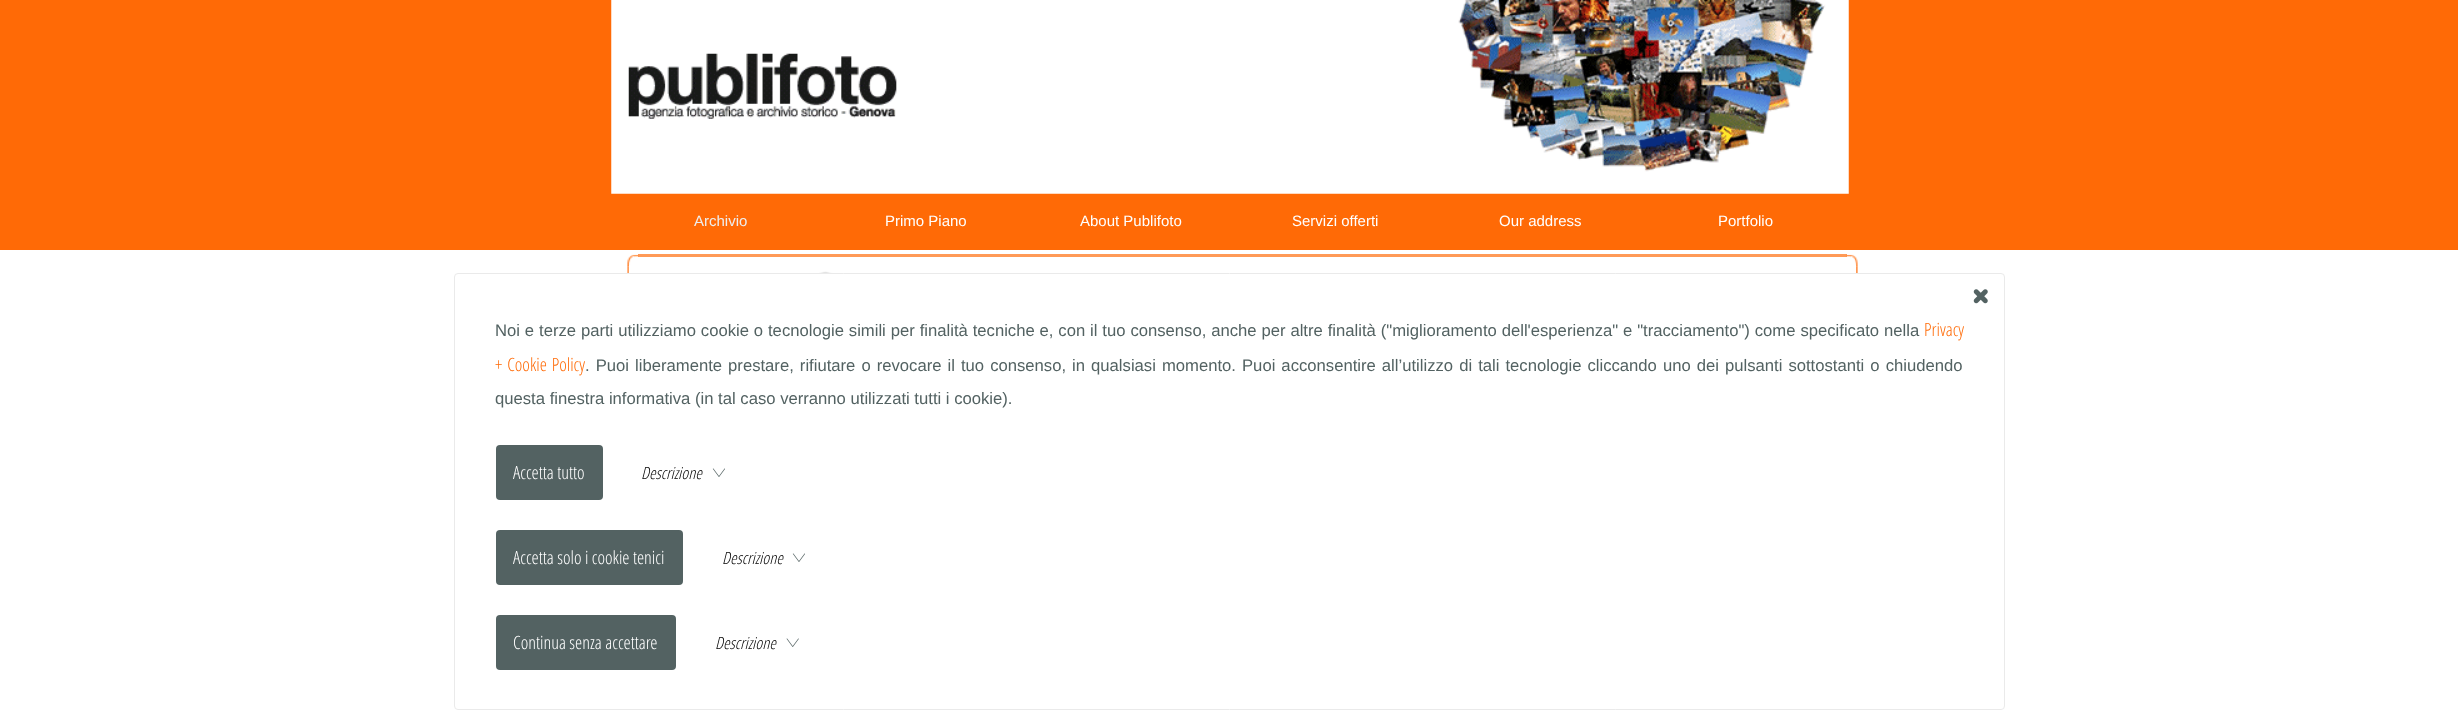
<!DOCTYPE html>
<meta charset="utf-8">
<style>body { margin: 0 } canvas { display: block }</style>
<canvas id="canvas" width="2458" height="710"></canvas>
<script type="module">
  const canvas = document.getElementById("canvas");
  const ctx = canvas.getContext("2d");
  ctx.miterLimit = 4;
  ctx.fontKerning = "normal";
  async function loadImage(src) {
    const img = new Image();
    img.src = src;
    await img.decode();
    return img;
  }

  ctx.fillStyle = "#ff6a06";
  ctx.fillRect(0, 0, 2458, 710);
  ctx.drawImage(await loadImage("img1.png"), 611, 0, 1238, 194);
  ctx.font = "15px Liberation Sans";
  ctx.fillStyle = "#eeeeee";
  ctx.fillText("Archivio", 694, 226);
  ctx.fillStyle = "#ffffff";
  ctx.fillText("Primo Piano", 885, 226);
  ctx.fillText("About Publifoto", 1080, 226);
  ctx.fillText("Servizi offerti", 1292, 226);
  ctx.fillText("Our address", 1499, 226);
  ctx.fillText("Portfolio", 1718, 226);
  ctx.fillRect(0, 250, 2458, 460);
  ctx.fillStyle = "#ff9a57";
  ctx.fillRect(638, 254, 1209, 3);
  ctx.drawImage(await loadImage("img4.png"), 627, 266, 2, 7);
  ctx.drawImage(await loadImage("img2.png"), 627, 254, 12, 13);
  ctx.drawImage(await loadImage("img6.png"), 1856, 266, 2, 7);
  ctx.drawImage(await loadImage("img3.png"), 1846, 254, 12, 13);
  ctx.drawImage(await loadImage("img5.png"), 819, 271, 15, 2);
  ctx.beginPath();
  ctx.roundRect(454.5, 273.5, 1550, 436, 3.5);
  ctx.strokeStyle = "#eaeaea";
  ctx.stroke();
  ctx.drawImage(await loadImage("img7.png"), 1973, 289, 15, 15);
  ctx.wordSpacing = "0.25px";
  ctx.font = "16.67px Liberation Sans";
  ctx.fillStyle = "#536262";
  ctx.fillText("Noi e terze parti utilizziamo cookie o tecnologie simili per finalità tecniche e, con il tuo consenso, anche per altre finalità (\"miglioramento dell'esperienza\" e \"tracciamento\") come specificato nella", 495, 336);
  ctx.wordSpacing = "0px";
  ctx.font = "300 18.25px Open Sans";
  ctx.fillStyle = "#ff6a06";
  ctx.fillText("Privacy", 1924, 336);
  ctx.wordSpacing = "1.4px";
  ctx.fillText("+ Cookie Policy", 495, 371);
  ctx.font = "16.67px Liberation Sans";
  ctx.fillStyle = "#536262";
  ctx.fillText(". Puoi liberamente prestare, rifiutare o revocare il tuo consenso, in qualsiasi momento. Puoi acconsentire all’utilizzo di tali tecnologie cliccando uno dei pulsanti sottostanti o chiudendo", 585, 371);
  ctx.wordSpacing = "0px";
  ctx.fillText("questa finestra informativa (in tal caso verranno utilizzati tutti i cookie).", 495, 404);
  ctx.beginPath();
  ctx.roundRect(496, 445, 107, 55, 4);
  ctx.fill();
  ctx.font = "300 18.25px Open Sans";
  ctx.fillStyle = "#ffffff";
  ctx.fillText("Accetta tutto", 513, 479);
  ctx.font = "italic 300 16.67px Open Sans";
  ctx.fillStyle = "#000000";
  ctx.fillText("Descrizione", 641, 479);
  ctx.drawImage(await loadImage("img8.png"), 712, 468, 13, 9);
  ctx.fillStyle = "#536262";
  ctx.beginPath();
  ctx.roundRect(496, 530, 187, 55, 4);
  ctx.fill();
  ctx.font = "300 18.25px Open Sans";
  ctx.fillStyle = "#ffffff";
  ctx.fillText("Accetta solo i cookie tenici", 513, 564);
  ctx.font = "italic 300 16.67px Open Sans";
  ctx.fillStyle = "#000000";
  ctx.fillText("Descrizione", 722, 564);
  ctx.drawImage(await loadImage("img8.png"), 792, 553, 13, 9);
  ctx.fillStyle = "#536262";
  ctx.beginPath();
  ctx.roundRect(496, 615, 180, 55, 4);
  ctx.fill();
  ctx.font = "300 18.25px Open Sans";
  ctx.fillStyle = "#ffffff";
  ctx.fillText("Continua senza accettare", 513, 649);
  ctx.font = "italic 300 16.67px Open Sans";
  ctx.fillStyle = "#000000";
  ctx.fillText("Descrizione", 715, 649);
  ctx.drawImage(await loadImage("img9.png"), 786, 638, 13, 9);
</script>
